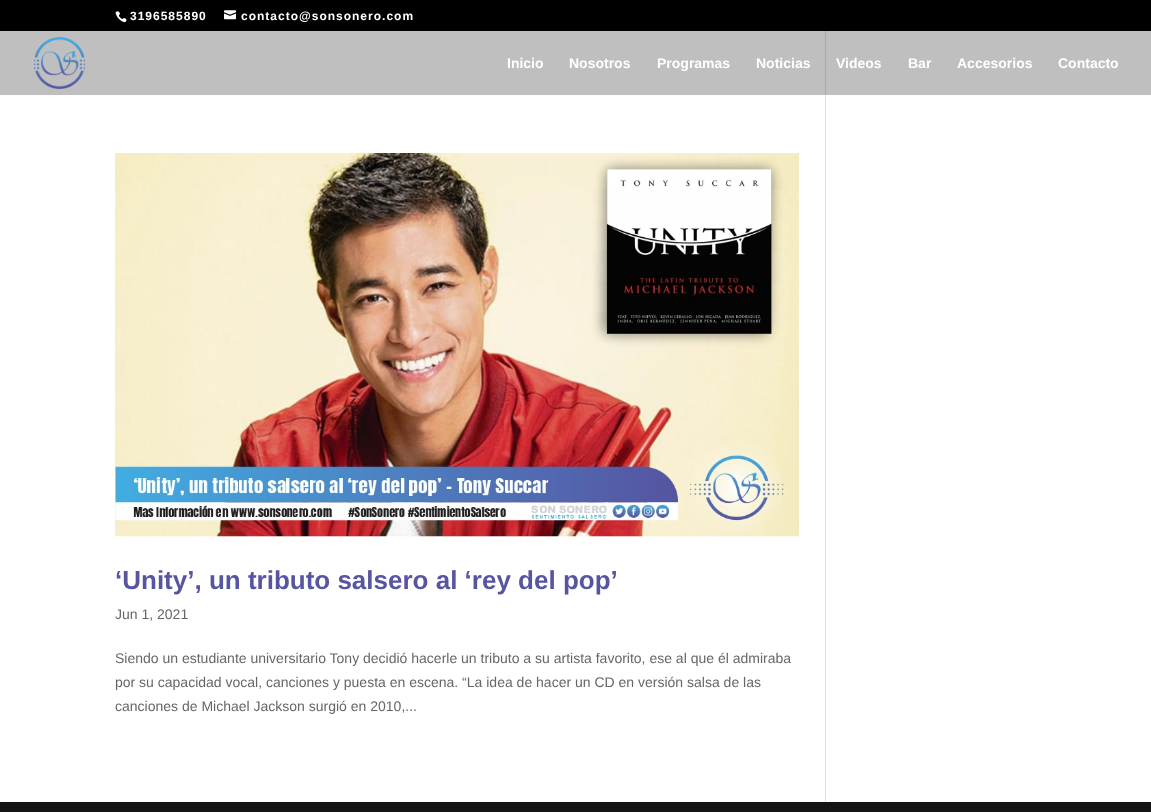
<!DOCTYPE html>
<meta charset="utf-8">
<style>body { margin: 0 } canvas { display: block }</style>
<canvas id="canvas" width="1151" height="812"></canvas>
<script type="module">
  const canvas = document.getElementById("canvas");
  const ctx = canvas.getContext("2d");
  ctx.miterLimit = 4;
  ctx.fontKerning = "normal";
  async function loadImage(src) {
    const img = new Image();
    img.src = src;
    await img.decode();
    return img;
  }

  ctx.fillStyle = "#ffffff";
  ctx.fillRect(0, 0, 1151, 812);
  ctx.fillStyle = "#bfbfbf";
  ctx.fillRect(0, 31, 1151, 64);
  ctx.fillStyle = "#000000";
  ctx.fillRect(0, 0, 1151, 31);
  ctx.drawImage(await loadImage("img1.png"), 115, 11, 12, 12);
  ctx.letterSpacing = "1px";
  ctx.font = "bold 12px Liberation Sans";
  ctx.fillStyle = "#ffffff";
  ctx.fillText("3196585890", 130, 20);
  ctx.drawImage(await loadImage("img2.png"), 224, 10, 12, 10);
  ctx.fillText("contacto@sonsonero.com", 241, 20);
  ctx.drawImage(await loadImage("img3.png"), 34, 37, 51, 52);
  ctx.letterSpacing = "0px";
  ctx.font = "bold 14px Liberation Sans";
  ctx.fillText("Inicio", 507, 68);
  ctx.fillText("Nosotros", 569, 68);
  ctx.fillText("Programas", 657, 68);
  ctx.fillText("Noticias", 756, 68);
  ctx.fillText("Videos", 836, 68);
  ctx.fillText("Bar", 908, 68);
  ctx.fillText("Accesorios", 957, 68);
  ctx.fillText("Contacto", 1058, 68);
  ctx.drawImage(await loadImage("img4.png"), 115, 153, 684, 384);
  ctx.font = "bold 26px Liberation Sans";
  ctx.fillStyle = "#5754a1";
  ctx.fillText("‘Unity’, un tributo salsero al ‘rey del pop’", 115, 589);
  ctx.font = "14px Liberation Sans";
  ctx.fillStyle = "#666666";
  ctx.fillText("Jun 1, 2021", 115, 619);
  ctx.fillText("Siendo un estudiante universitario Tony decidió hacerle un tributo a su artista favorito, ese al que él admiraba", 115, 663);
  ctx.fillText("por su capacidad vocal, canciones y puesta en escena. “La idea de hacer un CD en versión salsa de las", 115, 687);
  ctx.fillText("canciones de Michael Jackson surgió en 2010,...", 115, 711);
  ctx.fillStyle = "#e2e2e2";
  ctx.fillRect(825, 95, 1, 707);
  ctx.fillStyle = "#aaaaaa";
  ctx.fillRect(825, 31, 1, 64);
  ctx.fillStyle = "#141414";
  ctx.fillRect(0, 802, 1151, 10);
</script>
